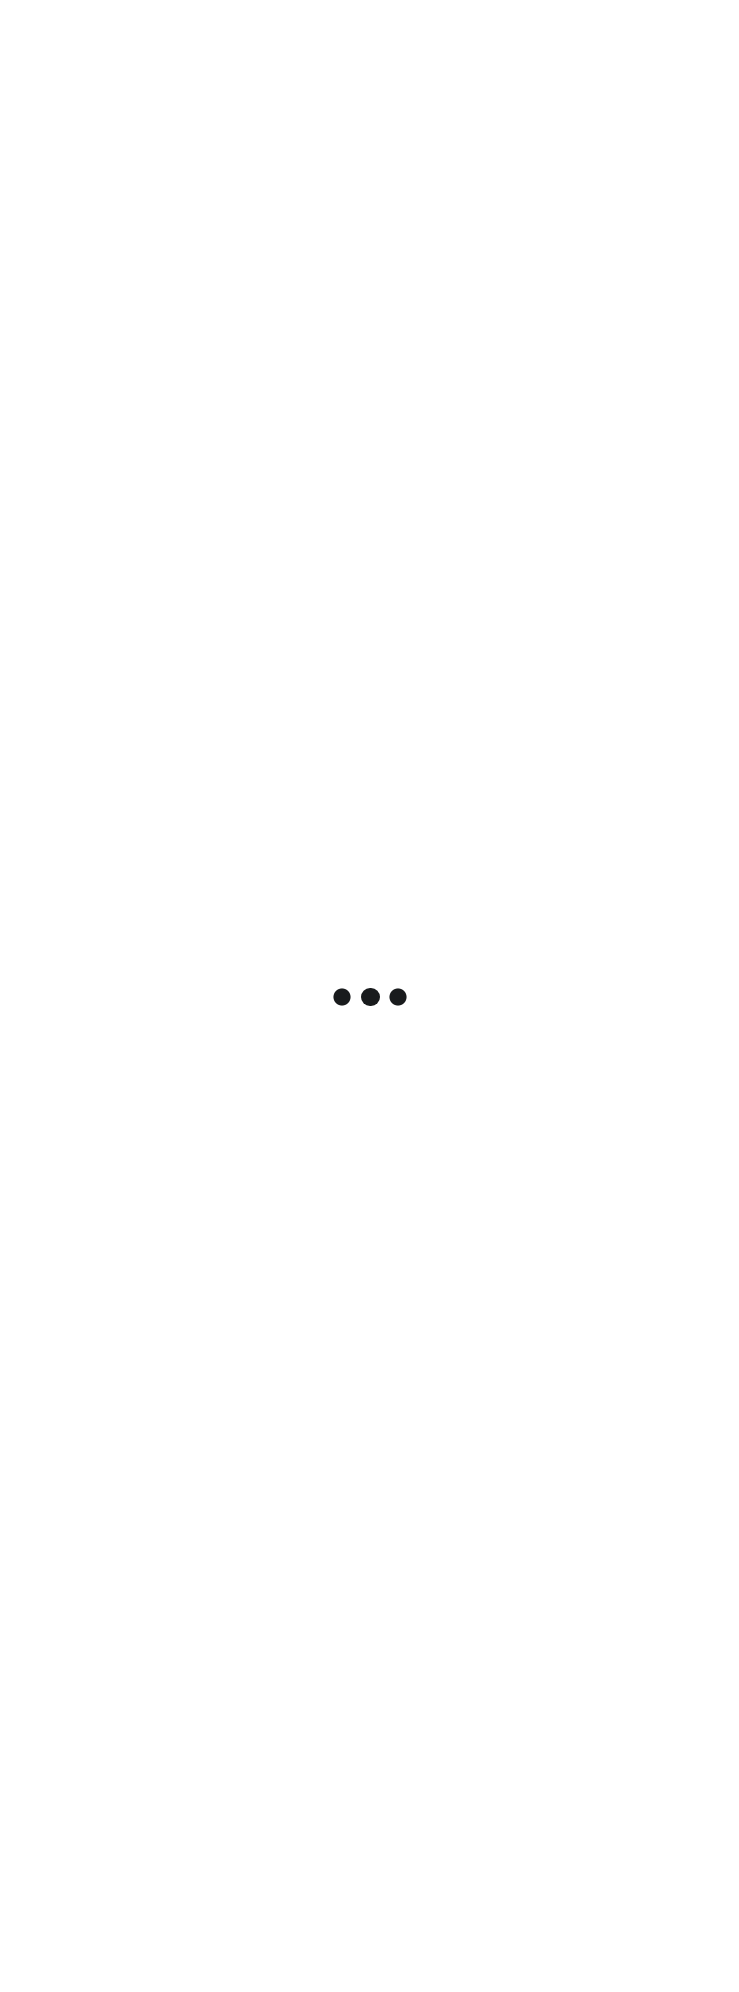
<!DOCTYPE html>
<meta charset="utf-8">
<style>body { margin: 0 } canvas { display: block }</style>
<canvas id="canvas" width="739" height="1992"></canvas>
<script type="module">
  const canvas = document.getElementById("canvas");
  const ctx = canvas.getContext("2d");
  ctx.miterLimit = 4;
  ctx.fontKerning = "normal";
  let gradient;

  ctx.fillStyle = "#ffffff";
  ctx.fillRect(0, 0, 739, 1992);
  gradient = ctx.createRadialGradient(398, 997, 0, 398, 997, 9);
  gradient.addColorStop(0.9, "#191b1d");
  gradient.addColorStop(1, "#ffffff");
  ctx.fillStyle = gradient;
  ctx.fillRect(389, 988, 18, 18);
  gradient = ctx.createRadialGradient(342, 997, 0, 342, 997, 9);
  gradient.addColorStop(0.9, "#191b1d");
  gradient.addColorStop(1, "#ffffff");
  ctx.fillStyle = gradient;
  ctx.fillRect(333, 988, 18, 18);
  ctx.fillStyle = "#191b1d";
  ctx.beginPath();
  ctx.roundRect(361, 988, 19, 18, 9);
  ctx.fill();
</script>
